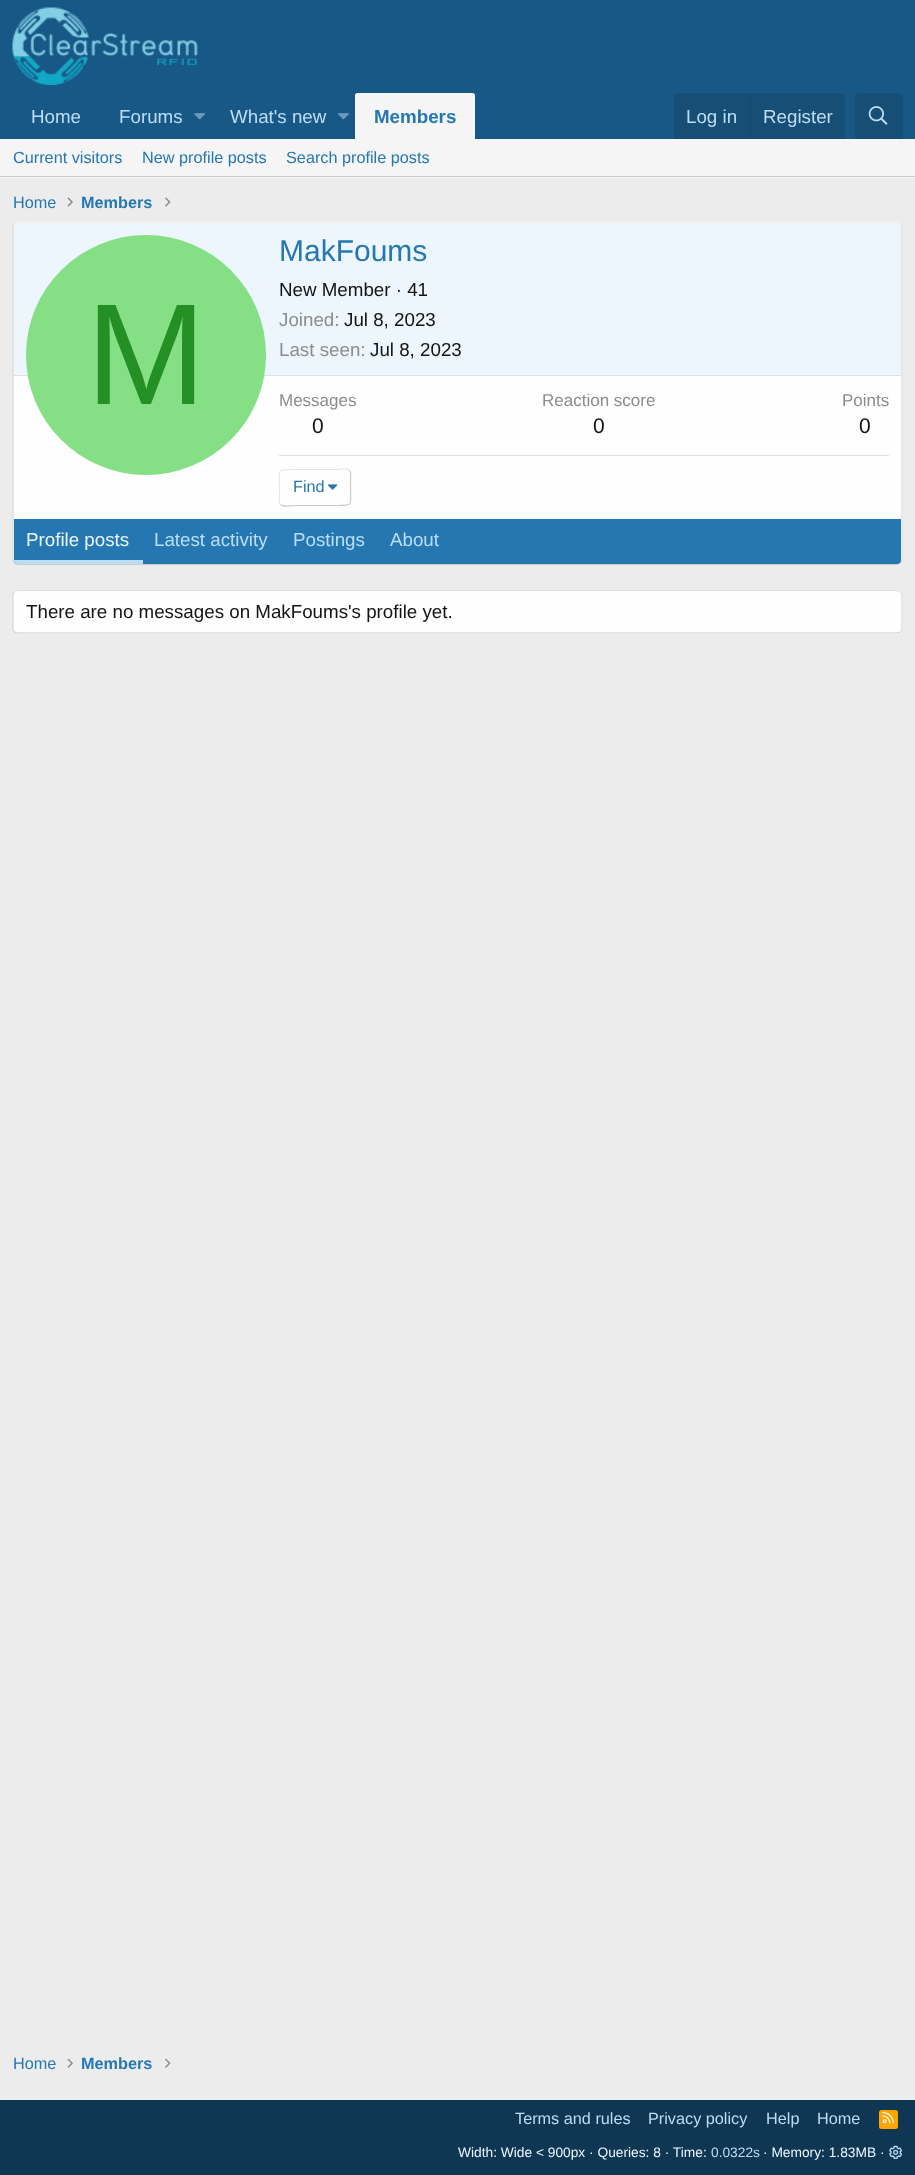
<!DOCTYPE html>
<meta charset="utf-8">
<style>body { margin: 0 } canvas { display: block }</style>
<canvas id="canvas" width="915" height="2175"></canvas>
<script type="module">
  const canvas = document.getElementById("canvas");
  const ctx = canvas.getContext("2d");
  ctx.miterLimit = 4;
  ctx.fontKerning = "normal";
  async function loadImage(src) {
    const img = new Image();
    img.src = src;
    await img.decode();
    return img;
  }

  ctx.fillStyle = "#ececec";
  ctx.fillRect(0, 0, 915, 2175);
  ctx.fillStyle = "#185886";
  ctx.fillRect(0, 0, 915, 139);
  ctx.drawImage(await loadImage("img1.png"), 12, 7, 186, 78);
  ctx.font = "18.75px Liberation Sans";
  ctx.fillStyle = "#bcdef5";
  ctx.fillText("Home", 31, 123);
  ctx.fillText("Forums", 119, 123);
  ctx.drawImage(await loadImage("img2.png"), 194, 113, 11, 7);
  ctx.fillText("What's new", 230, 123);
  ctx.drawImage(await loadImage("img3.png"), 338, 113, 11, 7);
  ctx.fillStyle = "#f5f5f5";
  ctx.beginPath();
  ctx.roundRect(355, 93, 120, 46, [2.5, 2.5, 0, 0]);
  ctx.fill();
  ctx.font = "bold 18.75px Liberation Sans";
  ctx.fillStyle = "#2577b1";
  ctx.fillText("Members", 374, 123);
  ctx.fillStyle = "#174e75";
  ctx.beginPath();
  ctx.roundRect(674, 93, 171, 46, [5, 5, 0, 0]);
  ctx.fill();
  ctx.font = "18.75px Liberation Sans";
  ctx.fillStyle = "#bcdef5";
  ctx.fillText("Log in", 686, 123);
  ctx.fillStyle = "#174566";
  ctx.fillRect(750, 93, 1, 46);
  ctx.fillStyle = "#bcdef5";
  ctx.fillText("Register", 763, 123);
  ctx.fillStyle = "#174e75";
  ctx.beginPath();
  ctx.roundRect(855, 93, 48, 46, [5, 5, 0, 0]);
  ctx.fill();
  ctx.drawImage(await loadImage("img4.png"), 868, 106, 20, 19);
  ctx.fillStyle = "#f5f5f5";
  ctx.fillRect(0, 139, 915, 39);
  ctx.fillStyle = "#cbcbcb";
  ctx.fillRect(0, 176, 915, 1);
  ctx.font = "16.25px Liberation Sans";
  ctx.fillStyle = "#2577b1";
  ctx.fillText("Current visitors", 13, 163);
  ctx.fillText("New profile posts", 142, 163);
  ctx.fillText("Search profile posts", 286, 163);
  ctx.fillText("Home", 13, 208);
  ctx.drawImage(await loadImage("img5.png"), 67, 197, 6, 10);
  ctx.font = "bold 16.25px Liberation Sans";
  ctx.fillText("Members", 81, 208);
  ctx.drawImage(await loadImage("img6.png"), 165, 197, 6, 10);
  ctx.fillStyle = "#fefefe";
  ctx.beginPath();
  ctx.roundRect(13, 221, 890, 344, 5);
  ctx.fill();
  ctx.beginPath();
  ctx.moveTo(14.5, 223);
  ctx.lineTo(17.5, 222);
  ctx.lineTo(897.5, 222);
  ctx.lineTo(900.5, 223);
  ctx.strokeStyle = "#dfdfdf";
  ctx.lineWidth = 1.2;
  ctx.stroke();
  ctx.beginPath();
  ctx.moveTo(900.5, 223);
  ctx.bezierCurveTo(901.5, 224, 902, 225, 902, 226);
  ctx.lineTo(902, 560);
  ctx.bezierCurveTo(902, 561, 901.5, 562.5, 900.5, 563);
  ctx.strokeStyle = "#d8d8d8";
  ctx.stroke();
  ctx.beginPath();
  ctx.moveTo(900.5, 563);
  ctx.lineTo(897.5, 564.5);
  ctx.lineTo(17.5, 564.5);
  ctx.lineTo(14.5, 563);
  ctx.strokeStyle = "#cbcbcb";
  ctx.stroke();
  ctx.beginPath();
  ctx.moveTo(14.5, 563);
  ctx.bezierCurveTo(13.5, 562.5, 13, 561, 13, 560);
  ctx.lineTo(13, 226);
  ctx.bezierCurveTo(13, 225, 13.5, 224, 14.5, 223);
  ctx.strokeStyle = "#d8d8d8";
  ctx.stroke();
  ctx.fillStyle = "#edf6fd";
  ctx.beginPath();
  ctx.roundRect(14, 223, 887, 153, [4, 4, 0, 0]);
  ctx.fill();
  ctx.fillStyle = "#dfdfdf";
  ctx.fillRect(14, 375, 887, 1);
  ctx.fillStyle = "#85e085";
  ctx.beginPath();
  ctx.arc(146, 355, 120, 0, Math.PI * 2);
  ctx.fill();
  ctx.font = "144px Liberation Sans";
  ctx.fillStyle = "#248f24";
  ctx.fillText("M", 86, 404);
  ctx.font = "30px Liberation Sans";
  ctx.fillStyle = "#2577b1";
  ctx.fillText("MakFoums", 279, 261);
  ctx.font = "18.75px Liberation Sans";
  ctx.fillStyle = "#141414";
  ctx.fillText("New Member · 41", 279, 296);
  ctx.fillStyle = "#8c8c8c";
  ctx.fillText("Joined:", 279, 326);
  ctx.fillStyle = "#141414";
  ctx.fillText("Jul 8, 2023", 344, 326);
  ctx.fillStyle = "#8c8c8c";
  ctx.fillText("Last seen:", 279, 356);
  ctx.fillStyle = "#141414";
  ctx.fillText("Jul 8, 2023", 370, 356);
  ctx.font = "17px Liberation Sans";
  ctx.fillStyle = "#8c8c8c";
  ctx.fillText("Messages", 279, 406);
  ctx.font = "21px Liberation Sans";
  ctx.fillStyle = "#141414";
  ctx.fillText("0", 312, 433);
  ctx.font = "17px Liberation Sans";
  ctx.fillStyle = "#8c8c8c";
  ctx.fillText("Reaction score", 542, 406);
  ctx.font = "21px Liberation Sans";
  ctx.fillStyle = "#141414";
  ctx.fillText("0", 593, 433);
  ctx.font = "17px Liberation Sans";
  ctx.fillStyle = "#8c8c8c";
  ctx.fillText("Points", 842, 406);
  ctx.font = "21px Liberation Sans";
  ctx.fillStyle = "#141414";
  ctx.fillText("0", 859, 433);
  ctx.fillStyle = "#dfdfdf";
  ctx.fillRect(279, 455, 610, 1);
  ctx.beginPath();
  ctx.moveTo(349.5, 470.5);
  ctx.bezierCurveTo(351.5, 472.5, 350.5, 476, 350.5, 478.5);
  ctx.lineTo(350.5, 487.5);
  ctx.bezierCurveTo(350.5, 506, 354, 505.5, 336, 505.5);
  ctx.lineTo(294, 505.5);
  ctx.bezierCurveTo(293, 505.5, 283.5, 507.5, 280.5, 504.5);
  ctx.strokeStyle = "#cbcbcb";
  ctx.stroke();
  ctx.beginPath();
  ctx.moveTo(280.5, 504.5);
  ctx.bezierCurveTo(278.5, 502.5, 279.5, 499, 279.5, 496.5);
  ctx.lineTo(279.5, 487.5);
  ctx.bezierCurveTo(279.5, 469, 276, 469.5, 294, 469.5);
  ctx.lineTo(336, 469.5);
  ctx.bezierCurveTo(337, 469.5, 346.5, 467.5, 349.5, 470.5);
  ctx.strokeStyle = "#e5e5e5";
  ctx.stroke();
  ctx.font = "16.25px Liberation Sans";
  ctx.fillStyle = "#2577b1";
  ctx.fillText("Find", 293, 492);
  ctx.drawImage(await loadImage("img7.png"), 327, 484, 11, 6);
  ctx.beginPath();
  ctx.roundRect(14, 519, 887, 45, [0, 0, 4, 4]);
  ctx.fill();
  ctx.fillStyle = "#bcdef5";
  ctx.beginPath();
  ctx.roundRect(14, 560, 129, 4, [0, 0, 0, 4]);
  ctx.fill();
  ctx.font = "18.75px Liberation Sans";
  ctx.fillStyle = "#edf6fd";
  ctx.fillText("Profile posts", 26, 546);
  ctx.fillStyle = "#bcdef5";
  ctx.fillText("Latest activity", 154, 546);
  ctx.fillText("Postings", 293, 546);
  ctx.fillText("About", 390, 546);
  ctx.fillStyle = "#fefefe";
  ctx.beginPath();
  ctx.roundRect(13, 590, 890, 44, 5);
  ctx.fill();
  ctx.beginPath();
  ctx.moveTo(14.5, 592);
  ctx.lineTo(17.5, 590.5);
  ctx.lineTo(897.5, 590.5);
  ctx.lineTo(900.5, 592);
  ctx.strokeStyle = "#dfdfdf";
  ctx.stroke();
  ctx.beginPath();
  ctx.moveTo(900.5, 592);
  ctx.bezierCurveTo(901.5, 592.5, 902, 594, 902, 595);
  ctx.lineTo(902, 629);
  ctx.bezierCurveTo(902, 630, 901.5, 631, 900.5, 632);
  ctx.strokeStyle = "#d8d8d8";
  ctx.stroke();
  ctx.beginPath();
  ctx.moveTo(900.5, 632);
  ctx.lineTo(897.5, 633);
  ctx.lineTo(17.5, 633);
  ctx.lineTo(14.5, 632);
  ctx.strokeStyle = "#cbcbcb";
  ctx.stroke();
  ctx.beginPath();
  ctx.moveTo(14.5, 632);
  ctx.bezierCurveTo(13.5, 631, 13, 630, 13, 629);
  ctx.lineTo(13, 595);
  ctx.bezierCurveTo(13, 594, 13.5, 592.5, 14.5, 592);
  ctx.strokeStyle = "#d8d8d8";
  ctx.stroke();
  ctx.fillStyle = "#141414";
  ctx.fillText("There are no messages on MakFoums's profile yet.", 26, 618);
  ctx.font = "16.25px Liberation Sans";
  ctx.fillStyle = "#2577b1";
  ctx.fillText("Home", 13, 2069);
  ctx.drawImage(await loadImage("img8.png"), 67, 2058, 6, 10);
  ctx.font = "bold 16.25px Liberation Sans";
  ctx.fillText("Members", 81, 2069);
  ctx.drawImage(await loadImage("img9.png"), 165, 2058, 6, 10);
  ctx.fillStyle = "#0f3652";
  ctx.fillRect(0, 2100, 915, 75);
  ctx.font = "16.25px Liberation Sans";
  ctx.fillStyle = "#bcdef5";
  ctx.fillText("Terms and rules", 515, 2124);
  ctx.fillText("Privacy policy", 648, 2124);
  ctx.fillText("Help", 766, 2124);
  ctx.fillText("Home", 817, 2124);
  ctx.fillStyle = "#ffa500";
  ctx.beginPath();
  ctx.roundRect(879, 2110, 19, 19, 2.5);
  ctx.fill();
  ctx.drawImage(await loadImage("img10.png"), 882, 2112, 12, 12);
  ctx.font = "13.75px Liberation Sans";
  ctx.fillStyle = "#edf6fd";
  ctx.fillText("Width: Wide < 900px · Queries: 8 · Time:", 458, 2157);
  ctx.fillStyle = "#bcdef5";
  ctx.fillText("0.0322s", 711, 2157);
  ctx.fillStyle = "#edf6fd";
  ctx.fillText("· Memory: 1.83MB ·", 763, 2157);
  ctx.drawImage(await loadImage("img11.png"), 889, 2145, 14, 14);
</script>
